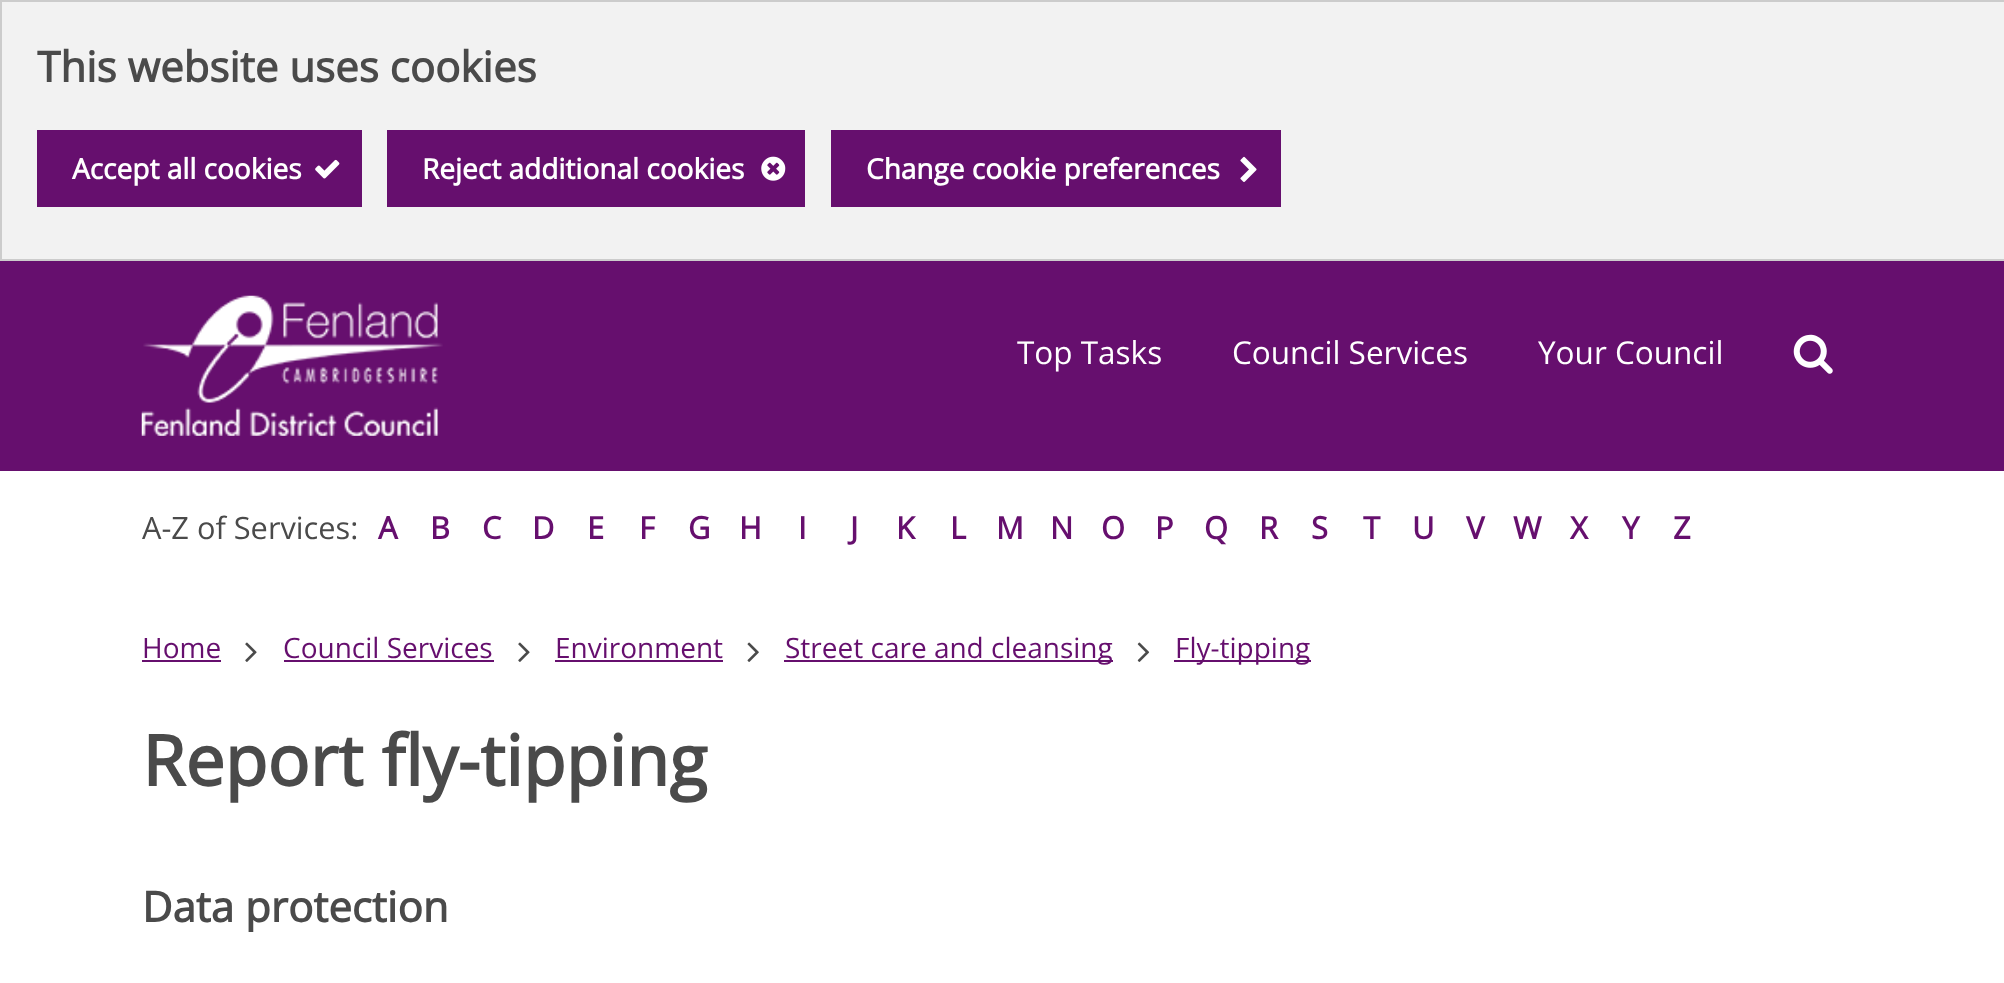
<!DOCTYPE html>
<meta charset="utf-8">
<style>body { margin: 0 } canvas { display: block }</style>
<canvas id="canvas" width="2004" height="983"></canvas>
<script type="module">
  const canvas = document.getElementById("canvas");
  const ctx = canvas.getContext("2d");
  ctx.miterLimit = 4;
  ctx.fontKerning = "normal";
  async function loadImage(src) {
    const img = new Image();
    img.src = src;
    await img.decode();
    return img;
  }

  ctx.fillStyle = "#ffffff";
  ctx.fillRect(0, 0, 2004, 983);
  ctx.fillStyle = "#f2f2f2";
  ctx.beginPath();
  ctx.rect(1, 1, 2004, 259);
  ctx.fill();
  ctx.strokeStyle = "#cccccc";
  ctx.lineWidth = 2;
  ctx.stroke();
  ctx.font = "bold 42px Open Sans";
  ctx.fillStyle = "#4a4a4a";
  ctx.fillText("This website uses cookies", 37, 82);
  ctx.fillStyle = "#660f6e";
  ctx.fillRect(37, 130, 325, 77);
  ctx.font = "bold 28px Open Sans";
  ctx.fillStyle = "#ffffff";
  ctx.fillText("Accept all cookies", 72, 179);
  ctx.drawImage(await loadImage("img1.png"), 315, 159, 25, 20);
  ctx.fillStyle = "#660f6e";
  ctx.fillRect(387, 130, 418, 77);
  ctx.fillStyle = "#ffffff";
  ctx.fillText("Reject additional cookies", 422, 179);
  ctx.drawImage(await loadImage("img2.png"), 761, 156, 25, 25);
  ctx.fillStyle = "#660f6e";
  ctx.fillRect(831, 130, 450, 77);
  ctx.fillStyle = "#ffffff";
  ctx.fillText("Change cookie preferences", 866, 179);
  ctx.drawImage(await loadImage("img3.png"), 1240, 156, 17, 26);
  ctx.fillStyle = "#660f6e";
  ctx.fillRect(0, 261, 2004, 210);
  ctx.drawImage(await loadImage("img4.png"), 141, 295, 302, 141);
  ctx.font = "31.5px Open Sans";
  ctx.fillStyle = "#ffffff";
  ctx.fillText("Top Tasks", 1017, 364);
  ctx.fillText("Council Services", 1232, 364);
  ctx.fillText("Your Council", 1538, 364);
  ctx.drawImage(await loadImage("img5.png"), 1793, 334, 40, 40);
  ctx.font = "30.75px Open Sans";
  ctx.fillStyle = "#4a4a4a";
  ctx.fillText("A-Z of Services:", 142, 539);
  ctx.font = "bold 30.75px Open Sans";
  ctx.fillStyle = "#660f6e";
  ctx.fillText("A", 378, 539);
  ctx.fillText("B", 430, 539);
  ctx.fillText("C", 482, 539);
  ctx.fillText("D", 532, 539);
  ctx.fillText("E", 587, 539);
  ctx.fillText("F", 639, 539);
  ctx.fillText("G", 688, 539);
  ctx.fillText("H", 739, 539);
  ctx.fillText("I", 798, 539);
  ctx.fillText("J", 850, 539);
  ctx.fillText("K", 896, 539);
  ctx.fillText("L", 950, 539);
  ctx.fillText("M", 996, 539);
  ctx.fillText("N", 1050, 539);
  ctx.fillText("O", 1101, 539);
  ctx.fillText("P", 1155, 539);
  ctx.fillText("Q", 1204, 539);
  ctx.fillText("R", 1259, 539);
  ctx.fillText("S", 1311, 539);
  ctx.fillText("T", 1363, 539);
  ctx.fillText("U", 1412, 539);
  ctx.fillText("V", 1466, 539);
  ctx.fillText("W", 1513, 539);
  ctx.fillText("X", 1570, 539);
  ctx.fillText("Y", 1622, 539);
  ctx.fillText("Z", 1673, 539);
  ctx.font = "28px Open Sans";
  ctx.fillText("Home", 142, 658);
  ctx.fillRect(142, 660, 79, 2);
  ctx.drawImage(await loadImage("img6.png"), 245, 642, 12, 20);
  ctx.fillText("Council Services", 283, 658);
  ctx.fillRect(284, 660, 210, 2);
  ctx.drawImage(await loadImage("img6.png"), 518, 642, 12, 20);
  ctx.fillText("Environment", 555, 658);
  ctx.fillRect(555, 660, 168, 2);
  ctx.drawImage(await loadImage("img7.png"), 747, 642, 12, 20);
  ctx.fillRect(784, 660, 329, 2);
  ctx.fillText("Street care and cleansing", 785, 658);
  ctx.drawImage(await loadImage("img8.png"), 1137, 642, 13, 20);
  ctx.fillRect(1174, 660, 137, 2);
  ctx.fillText("Fly-tipping", 1175, 658);
  ctx.font = "bold 70px Open Sans";
  ctx.fillStyle = "#4a4a4a";
  ctx.fillText("Report fly-tipping", 142, 786);
  ctx.font = "bold 42px Open Sans";
  ctx.fillText("Data protection", 142, 922);
</script>
